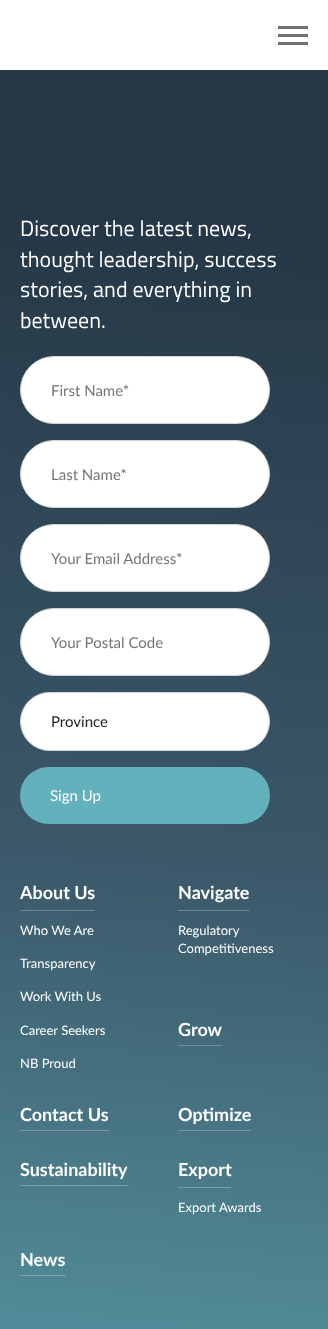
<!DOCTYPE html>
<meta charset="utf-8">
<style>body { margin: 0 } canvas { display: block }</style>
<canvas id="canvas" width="328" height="1329"></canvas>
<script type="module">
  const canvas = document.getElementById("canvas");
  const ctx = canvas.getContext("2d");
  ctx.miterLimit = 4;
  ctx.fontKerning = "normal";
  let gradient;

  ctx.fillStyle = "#ffffff";
  ctx.fillRect(0, 0, 328, 1329);
  ctx.fillStyle = "#707070";
  ctx.fillRect(278, 26, 30, 3);
  ctx.fillRect(278, 34, 30, 3);
  ctx.fillRect(278, 42, 30, 3);
  gradient = ctx.createLinearGradient(235, 62, 93, 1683);
  gradient.addColorStop(0.1, "#253746");
  gradient.addColorStop(0.5, "#3b596a");
  gradient.addColorStop(1, "#63b1bc");
  ctx.fillStyle = gradient;
  ctx.fillRect(0, 70, 328, 1259);
  ctx.font = "22px Titillium Web";
  ctx.fillStyle = "#ffffff";
  ctx.fillText("Discover the latest news,", 20, 236);
  ctx.fillText("thought leadership, success", 20, 267);
  ctx.fillText("stories, and everything in", 20, 297);
  ctx.fillText("between.", 20, 328);
  ctx.beginPath();
  ctx.roundRect(20.5, 356.5, 249, 67, 33.5);
  ctx.fill();
  ctx.strokeStyle = "#d4d4d4";
  ctx.stroke();
  ctx.font = "15px Lato";
  ctx.fillStyle = "#757575";
  ctx.fillText("First Name*", 51, 396);
  ctx.fillStyle = "#ffffff";
  ctx.beginPath();
  ctx.roundRect(20.5, 440.5, 249, 67, 33.5);
  ctx.fill();
  ctx.stroke();
  ctx.fillStyle = "#757575";
  ctx.fillText("Last Name*", 51, 480);
  ctx.fillStyle = "#ffffff";
  ctx.beginPath();
  ctx.roundRect(20.5, 524.5, 249, 67, 33.5);
  ctx.fill();
  ctx.stroke();
  ctx.fillStyle = "#757575";
  ctx.fillText("Your Email Address*", 51, 564);
  ctx.fillStyle = "#ffffff";
  ctx.beginPath();
  ctx.roundRect(20.5, 608.5, 249, 67, 33.5);
  ctx.fill();
  ctx.stroke();
  ctx.fillStyle = "#757575";
  ctx.fillText("Your Postal Code", 51, 648);
  ctx.fillStyle = "#ffffff";
  ctx.beginPath();
  ctx.roundRect(20.5, 692.5, 249, 58, 29);
  ctx.fill();
  ctx.stroke();
  ctx.fillStyle = "#1f1f1f";
  ctx.fillText("Province", 51, 727);
  ctx.fillStyle = "#62b1bc";
  ctx.beginPath();
  ctx.roundRect(20, 767, 250, 57, 28.5);
  ctx.fill();
  ctx.fillStyle = "#ffffff";
  ctx.fillText("Sign Up", 50, 801);
  ctx.fillStyle = "#6e8693";
  ctx.fillRect(20, 910, 75, 1);
  ctx.font = "bold 18px Lato";
  ctx.fillStyle = "#ffffff";
  ctx.fillText("About Us", 20, 899);
  ctx.font = "13px Lato";
  ctx.fillText("Who We Are", 20, 935);
  ctx.fillText("Transparency", 20, 968);
  ctx.fillText("Work With Us", 20, 1001);
  ctx.fillText("Career Seekers", 20, 1035);
  ctx.fillText("NB Proud", 20, 1068);
  ctx.fillStyle = "#6d8592";
  ctx.fillRect(178, 910, 71, 1);
  ctx.font = "bold 18px Lato";
  ctx.fillStyle = "#ffffff";
  ctx.fillText("Navigate", 178, 899);
  ctx.font = "13px Lato";
  ctx.fillText("Regulatory", 178, 935);
  ctx.fillText("Competitiveness", 178, 953);
  ctx.font = "bold 18px Lato";
  ctx.fillText("Grow", 178, 1036);
  ctx.fillStyle = "#72909c";
  ctx.fillRect(178, 1045, 44, 1);
  ctx.fillStyle = "#ffffff";
  ctx.fillText("Contact Us", 20, 1121);
  ctx.fillStyle = "#7698a3";
  ctx.fillRect(20, 1130, 89, 1);
  ctx.fillStyle = "#ffffff";
  ctx.fillText("Optimize", 178, 1121);
  ctx.fillStyle = "#7597a2";
  ctx.fillRect(178, 1130, 73, 1);
  ctx.fillStyle = "#ffffff";
  ctx.fillText("Sustainability", 20, 1176);
  ctx.fillStyle = "#789ca7";
  ctx.fillRect(20, 1185, 108, 1);
  ctx.fillStyle = "#779ca7";
  ctx.fillRect(178, 1187, 53, 1);
  ctx.fillStyle = "#ffffff";
  ctx.fillText("Export", 178, 1176);
  ctx.font = "13px Lato";
  ctx.fillText("Export Awards", 178, 1212);
  ctx.font = "bold 18px Lato";
  ctx.fillText("News", 20, 1266);
  ctx.fillStyle = "#7ba4ae";
  ctx.fillRect(20, 1275, 46, 1);
</script>
